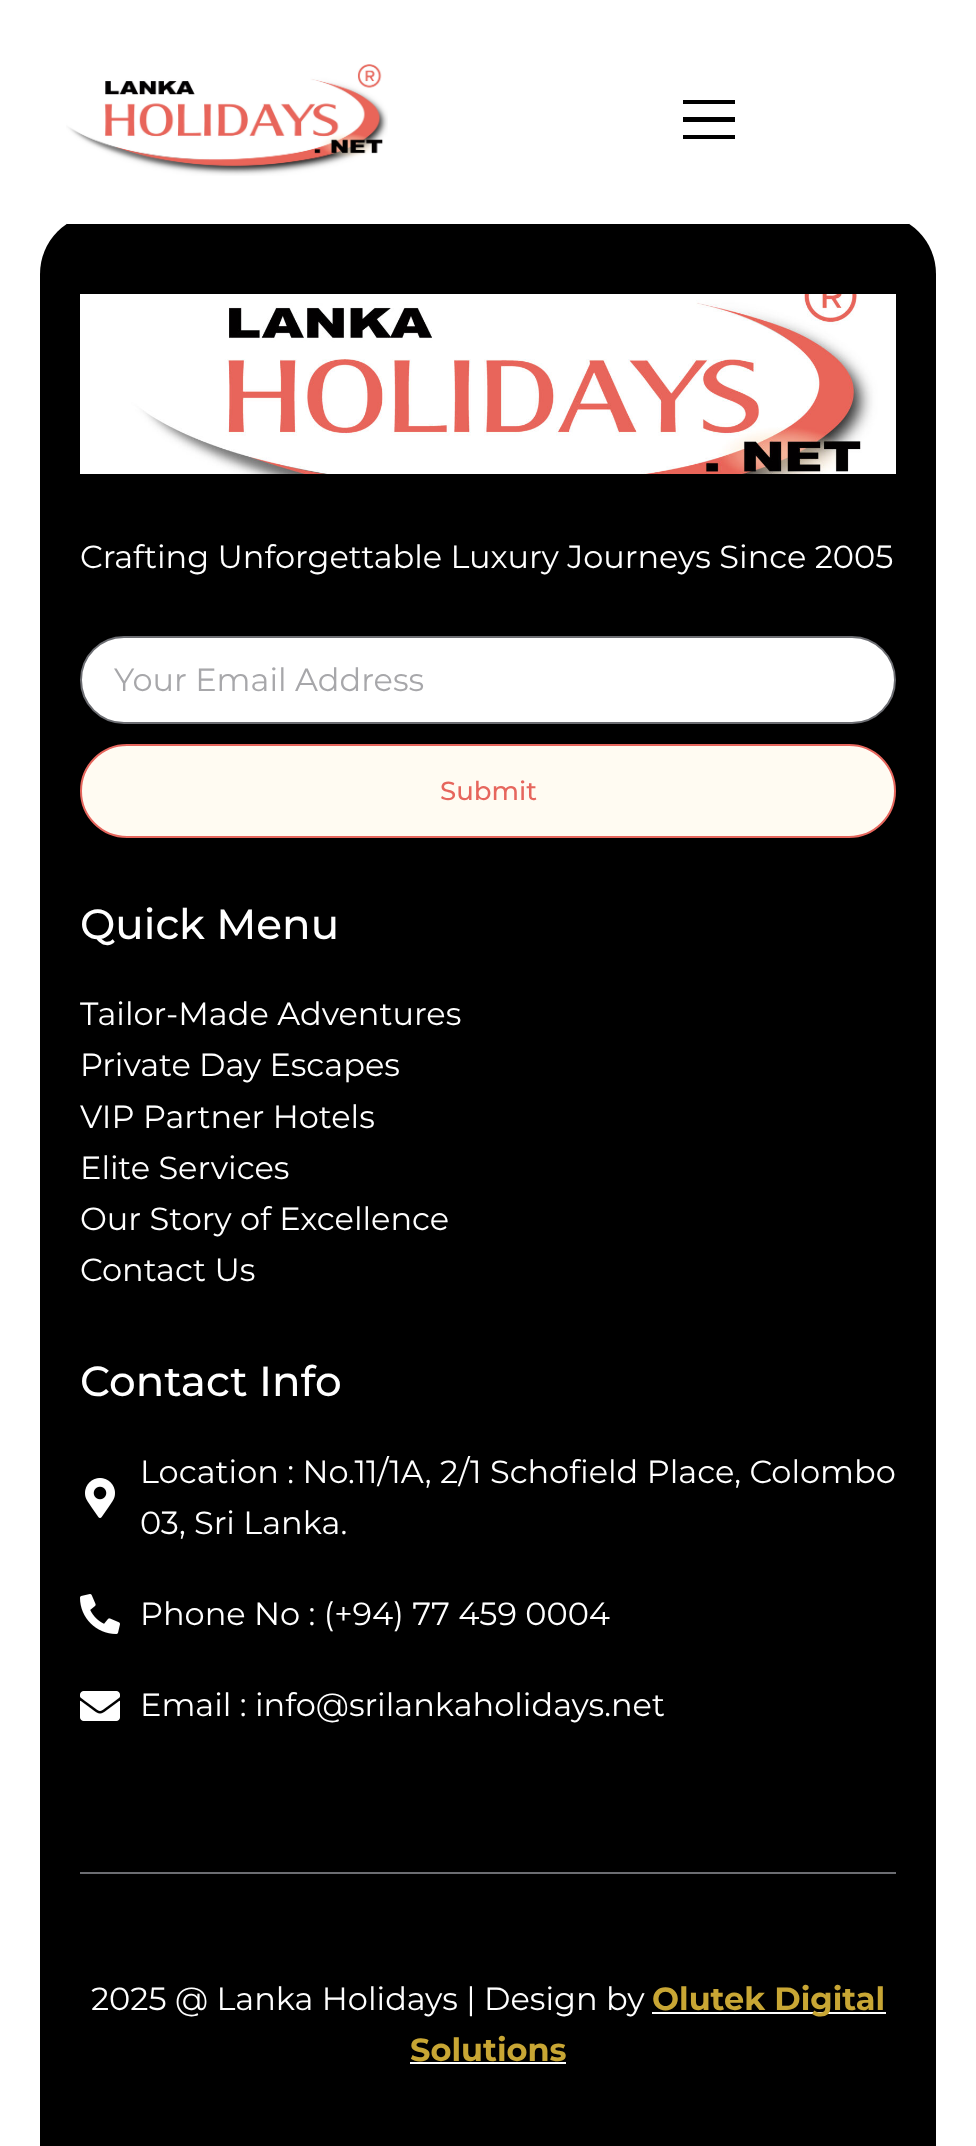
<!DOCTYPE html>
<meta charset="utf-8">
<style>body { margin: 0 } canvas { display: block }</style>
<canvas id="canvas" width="976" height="2146"></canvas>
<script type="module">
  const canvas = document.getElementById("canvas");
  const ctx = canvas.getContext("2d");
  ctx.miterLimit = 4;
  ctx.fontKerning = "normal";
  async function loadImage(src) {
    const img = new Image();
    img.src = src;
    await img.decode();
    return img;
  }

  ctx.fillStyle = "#ffffff";
  ctx.fillRect(0, 0, 976, 2146);
  ctx.fillStyle = "#000000";
  ctx.beginPath();
  ctx.roundRect(40, 214, 896, 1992, 60);
  ctx.fill();
  ctx.fillStyle = "#ffffff";
  ctx.fillRect(67, 214, 842, 10);
  ctx.drawImage(await loadImage("img1.png"), 66, 64, 322, 112);
  ctx.fillStyle = "#000000";
  ctx.beginPath();
  ctx.moveTo(683, 100);
  ctx.lineTo(683, 104);
  ctx.lineTo(735, 104);
  ctx.lineTo(735, 100);
  ctx.closePath();
  ctx.moveTo(683, 117);
  ctx.lineTo(683, 122);
  ctx.lineTo(735, 122);
  ctx.lineTo(735, 117);
  ctx.closePath();
  ctx.moveTo(683, 135);
  ctx.lineTo(683, 139);
  ctx.lineTo(735, 139);
  ctx.lineTo(735, 135);
  ctx.closePath();
  ctx.fill();
  ctx.drawImage(await loadImage("img2.png"), 80, 294, 816, 180);
  ctx.font = "32px Montserrat";
  ctx.fillStyle = "#ffffff";
  ctx.fillText("Crafting Unforgettable Luxury Journeys Since 2005", 80, 568);
  ctx.beginPath();
  ctx.roundRect(81, 637, 814, 86, 43);
  ctx.fill();
  ctx.strokeStyle = "#6c6d72";
  ctx.lineWidth = 2;
  ctx.stroke();
  ctx.fillStyle = "#a7a7aa";
  ctx.fillText("Your Email Address", 114, 691);
  ctx.fillStyle = "#fffbf2";
  ctx.beginPath();
  ctx.roundRect(81, 745, 814, 92, 46);
  ctx.fill();
  ctx.strokeStyle = "#e6665d";
  ctx.stroke();
  ctx.font = "500 26px Montserrat";
  ctx.fillStyle = "#e6665d";
  ctx.fillText("Submit", 440, 800);
  ctx.font = "500 42px Montserrat";
  ctx.fillStyle = "#ffffff";
  ctx.fillText("Quick Menu", 80, 939);
  ctx.font = "32px Montserrat";
  ctx.fillText("Tailor-Made Adventures", 80, 1025);
  ctx.fillText("Private Day Escapes", 80, 1076);
  ctx.fillText("VIP Partner Hotels", 80, 1128);
  ctx.fillText("Elite Services", 80, 1179);
  ctx.fillText("Our Story of Excellence", 80, 1230);
  ctx.fillText("Contact Us", 80, 1281);
  ctx.font = "500 42px Montserrat";
  ctx.fillText("Contact Info", 80, 1396);
  ctx.drawImage(await loadImage("img3.png"), 85, 1478, 30, 40);
  ctx.font = "32px Montserrat";
  ctx.fillText("Location : No.11/1A, 2/1 Schofield Place, Colombo", 140, 1483);
  ctx.fillText("03, Sri Lanka.", 140, 1534);
  ctx.drawImage(await loadImage("img4.png"), 80, 1594, 40, 40);
  ctx.fillText("Phone No : (+94) 77 459 0004", 140, 1625);
  ctx.drawImage(await loadImage("img5.png"), 80, 1691, 40, 30);
  ctx.fillText("Email : info@srilankaholidays.net", 140, 1716);
  ctx.fillStyle = "#6c6d72";
  ctx.fillRect(80, 1872, 816, 2);
  ctx.fillStyle = "#ffffff";
  ctx.fillText("2025 @ Lanka Holidays | Design by", 91, 2010);
  ctx.fillRect(652, 2012, 234, 2);
  ctx.font = "bold 32px Montserrat";
  ctx.fillStyle = "#c8a634";
  ctx.fillText("Olutek Digital", 652, 2010);
  ctx.fillText("Solutions", 410, 2061);
  ctx.fillStyle = "#ffffff";
  ctx.fillRect(410, 2062, 156, 2);
</script>
